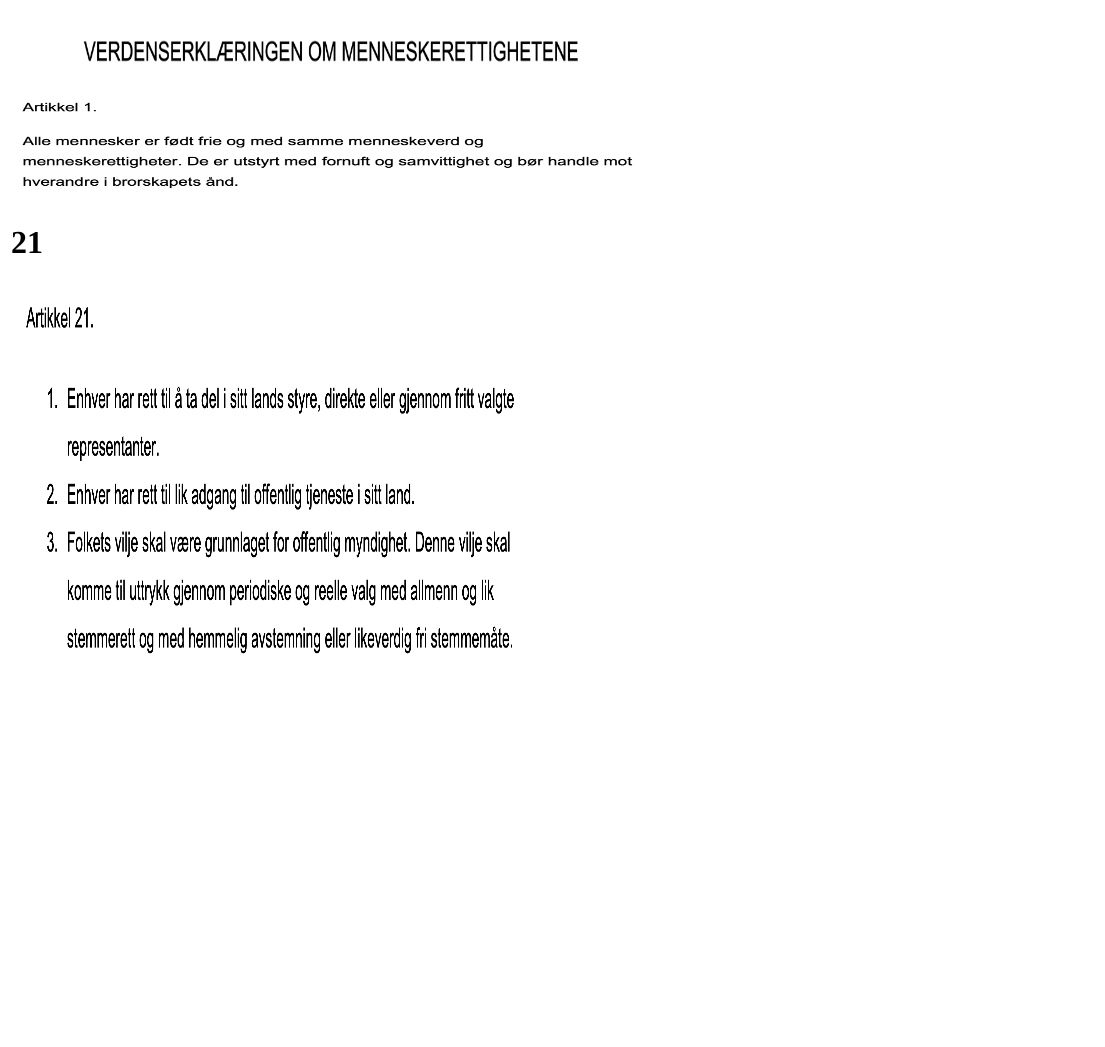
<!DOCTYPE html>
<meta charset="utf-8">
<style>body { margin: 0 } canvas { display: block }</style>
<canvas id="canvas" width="1105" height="1047"></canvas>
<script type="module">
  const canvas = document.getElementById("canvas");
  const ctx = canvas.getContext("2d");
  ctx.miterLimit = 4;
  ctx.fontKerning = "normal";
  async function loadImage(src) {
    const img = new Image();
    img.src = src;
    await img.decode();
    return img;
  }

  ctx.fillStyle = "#ffffff";
  ctx.fillRect(0, 0, 1105, 1047);
  ctx.drawImage(await loadImage("img1.png"), 83, 40, 495, 22);
  ctx.drawImage(await loadImage("img2.png"), 22, 102, 611, 86);
  ctx.font = "bold 32px Liberation Serif";
  ctx.fillStyle = "#000000";
  ctx.fillText("21", 11, 253);
  ctx.drawImage(await loadImage("img3.png"), 26, 307, 488, 347);
</script>
